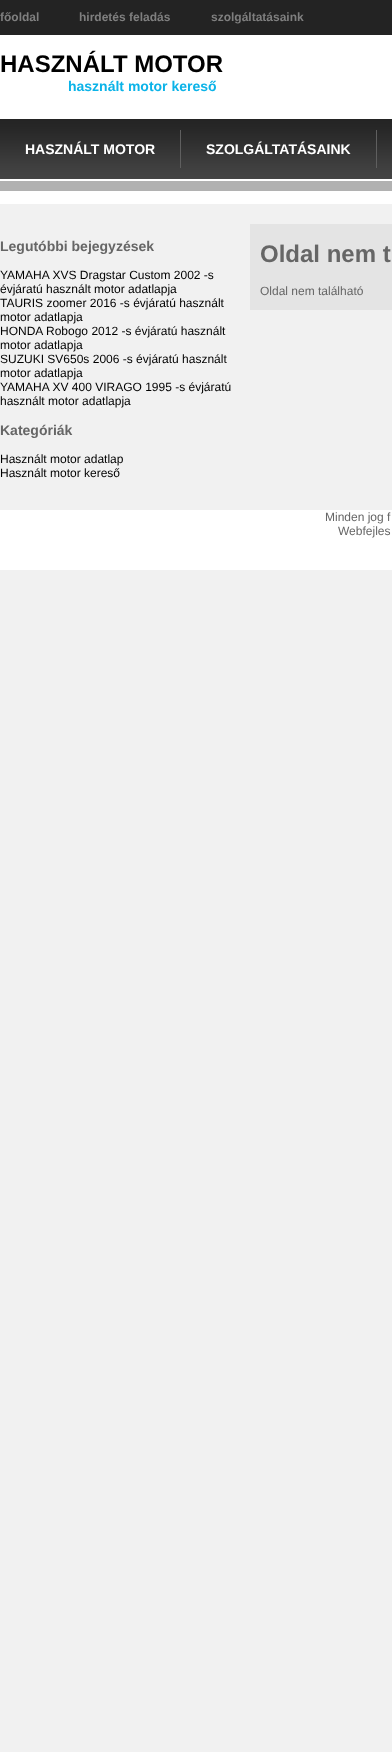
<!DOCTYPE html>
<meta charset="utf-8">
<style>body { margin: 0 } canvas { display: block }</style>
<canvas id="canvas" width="392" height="1752"></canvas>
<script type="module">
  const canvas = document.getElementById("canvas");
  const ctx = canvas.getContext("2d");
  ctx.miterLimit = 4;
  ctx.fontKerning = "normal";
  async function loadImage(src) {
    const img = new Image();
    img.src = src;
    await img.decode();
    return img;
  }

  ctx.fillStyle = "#f1f1f1";
  ctx.fillRect(0, 0, 392, 1752);
  ctx.fillStyle = "#232323";
  ctx.fillRect(0, 0, 392, 35);
  ctx.font = "bold 12px Liberation Sans";
  ctx.fillStyle = "#7f7f7f";
  ctx.fillText("főoldal", 0, 21);
  ctx.fillText("hirdetés feladás", 79, 21);
  ctx.fillText("szolgáltatásaink", 211, 21);
  ctx.fillStyle = "#ffffff";
  ctx.fillRect(0, 35, 392, 169);
  ctx.font = "bold 24px Liberation Sans";
  ctx.fillStyle = "#000000";
  ctx.fillText("HASZNÁLT MOTOR", 0, 72);
  ctx.font = "bold 14px Liberation Sans";
  ctx.fillStyle = "#0bb3e8";
  ctx.fillText("használt motor kereső", 68, 91);
  ctx.drawImage(await loadImage("img1.png"), 0, 119, 392, 72);
  ctx.fillStyle = "#ffffff";
  ctx.fillText("HASZNÁLT MOTOR", 25, 154);
  ctx.fillStyle = "#5f5f5f";
  ctx.fillRect(180, 130, 1, 38);
  ctx.fillStyle = "#ffffff";
  ctx.fillText("SZOLGÁLTATÁSAINK", 206, 154);
  ctx.fillStyle = "#5f5f5f";
  ctx.fillRect(376, 130, 1, 38);
  ctx.fillStyle = "#666666";
  ctx.fillText("Legutóbbi bejegyzések", 0, 251);
  ctx.font = "12px Liberation Sans";
  ctx.fillStyle = "#000000";
  ctx.fillText("YAMAHA XVS Dragstar Custom 2002 -s", 0, 279);
  ctx.fillText("évjáratú használt motor adatlapja", 0, 293);
  ctx.fillText("TAURIS zoomer 2016 -s évjáratú használt", 0, 307);
  ctx.fillText("motor adatlapja", 0, 321);
  ctx.fillText("HONDA Robogo 2012 -s évjáratú használt", 0, 335);
  ctx.fillText("motor adatlapja", 0, 349);
  ctx.fillText("SUZUKI SV650s 2006 -s évjáratú használt", 0, 363);
  ctx.fillText("motor adatlapja", 0, 377);
  ctx.fillText("YAMAHA XV 400 VIRAGO 1995 -s évjáratú", 0, 391);
  ctx.fillText("használt motor adatlapja", 0, 405);
  ctx.font = "bold 14px Liberation Sans";
  ctx.fillStyle = "#666666";
  ctx.fillText("Kategóriák", 0, 435);
  ctx.font = "12px Liberation Sans";
  ctx.fillStyle = "#000000";
  ctx.fillText("Használt motor adatlap", 0, 463);
  ctx.fillText("Használt motor kereső", 0, 477);
  ctx.fillStyle = "#e4e4e4";
  ctx.fillRect(250, 224, 142, 86);
  ctx.font = "bold 24px Liberation Sans";
  ctx.fillStyle = "#666666";
  ctx.fillText("Oldal nem t", 260, 262);
  ctx.font = "12px Liberation Sans";
  ctx.fillText("Oldal nem található", 260, 295);
  ctx.fillStyle = "#ffffff";
  ctx.fillRect(0, 510, 392, 60);
  ctx.fillStyle = "#666666";
  ctx.fillText("Minden jog f", 325, 521);
  ctx.fillText("Webfejles", 338, 535);
</script>
